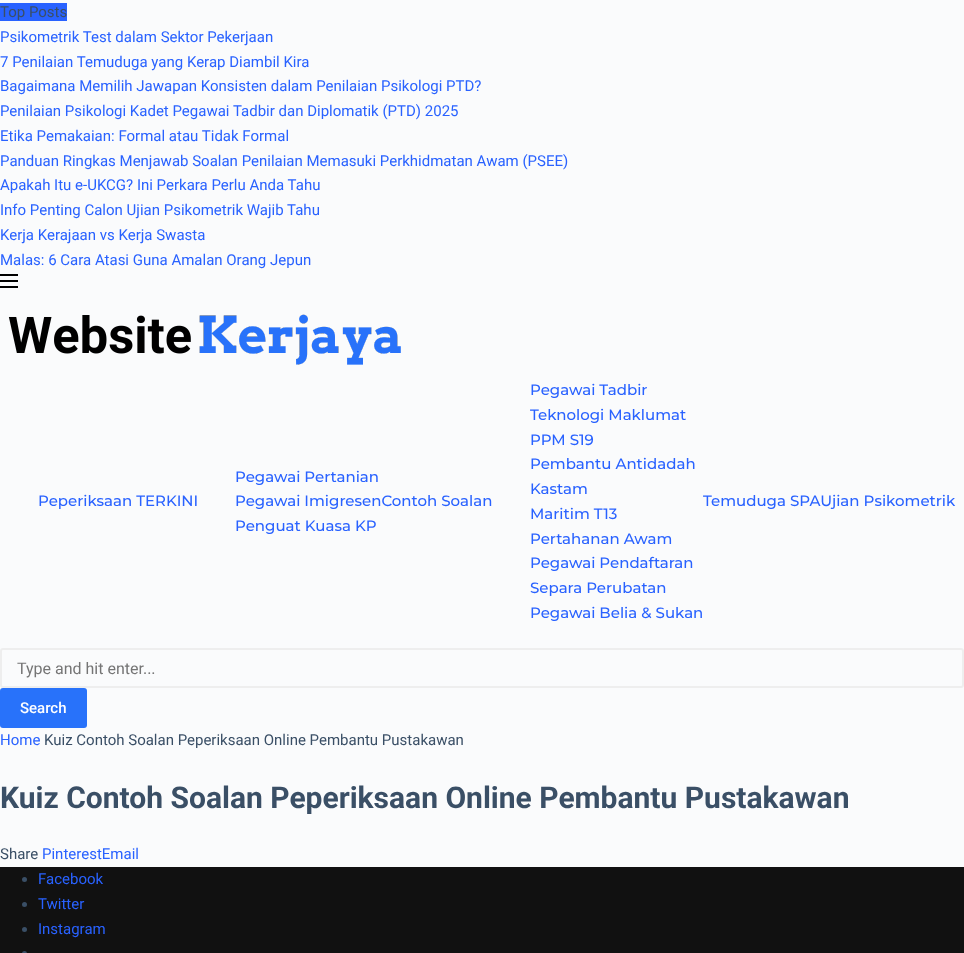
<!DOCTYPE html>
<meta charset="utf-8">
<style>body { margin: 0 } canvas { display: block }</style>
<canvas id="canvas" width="964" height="953"></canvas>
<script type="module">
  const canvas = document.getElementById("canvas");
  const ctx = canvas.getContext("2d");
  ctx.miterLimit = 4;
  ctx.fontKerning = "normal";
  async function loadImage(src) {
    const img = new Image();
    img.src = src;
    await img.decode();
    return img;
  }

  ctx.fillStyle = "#fafbfc";
  ctx.fillRect(0, 0, 964, 953);
  ctx.fillStyle = "#2962ff";
  ctx.fillRect(0, 3, 67, 18);
  ctx.font = "15px Roboto";
  ctx.fillStyle = "#3a4f66";
  ctx.fillText("Top Posts", 0, 17);
  ctx.fillStyle = "#2962ff";
  ctx.fillText("Psikometrik Test dalam Sektor Pekerjaan", 0, 42);
  ctx.fillText("7 Penilaian Temuduga yang Kerap Diambil Kira", 0, 67);
  ctx.fillText("Bagaimana Memilih Jawapan Konsisten dalam Penilaian Psikologi PTD?", 0, 91);
  ctx.fillText("Penilaian Psikologi Kadet Pegawai Tadbir dan Diplomatik (PTD) 2025", 0, 116);
  ctx.fillText("Etika Pemakaian: Formal atau Tidak Formal", 0, 141);
  ctx.fillText("Panduan Ringkas Menjawab Soalan Penilaian Memasuki Perkhidmatan Awam (PSEE)", 0, 166);
  ctx.fillText("Apakah Itu e-UKCG? Ini Perkara Perlu Anda Tahu", 0, 190);
  ctx.fillText("Info Penting Calon Ujian Psikometrik Wajib Tahu", 0, 215);
  ctx.fillText("Kerja Kerajaan vs Kerja Swasta", 0, 240);
  ctx.fillText("Malas: 6 Cara Atasi Guna Amalan Orang Jepun", 0, 265);
  ctx.fillStyle = "#000000";
  ctx.fillRect(0, 274, 18, 2);
  ctx.fillRect(0, 280, 18, 2);
  ctx.fillRect(0, 286, 18, 2);
  ctx.drawImage(await loadImage("img1.png"), 8, 314, 393, 51);
  ctx.font = "500 15px Montserrat";
  ctx.fillStyle = "#2962ff";
  ctx.fillText("Peperiksaan TERKINI", 38, 506);
  ctx.fillText("Pegawai Pertanian", 235, 482);
  ctx.fillText("Pegawai ImigresenContoh Soalan", 235, 506);
  ctx.fillText("Penguat Kuasa KP", 235, 531);
  ctx.fillText("Pegawai Tadbir", 530, 395);
  ctx.fillText("Teknologi Maklumat", 530, 420);
  ctx.fillText("PPM S19", 530, 445);
  ctx.fillText("Pembantu Antidadah", 530, 469);
  ctx.fillText("Kastam", 530, 494);
  ctx.fillText("Maritim T13", 530, 519);
  ctx.fillText("Pertahanan Awam", 530, 544);
  ctx.fillText("Pegawai Pendaftaran", 530, 568);
  ctx.fillText("Separa Perubatan", 530, 593);
  ctx.fillText("Pegawai Belia & Sukan", 530, 618);
  ctx.fillText("Temuduga SPAUjian Psikometrik", 703, 506);
  ctx.beginPath();
  ctx.roundRect(1, 649, 962, 38, 2);
  ctx.strokeStyle = "#eeeeee";
  ctx.lineWidth = 2;
  ctx.stroke();
  ctx.font = "16px Roboto";
  ctx.fillStyle = "#757575";
  ctx.fillText("Type and hit enter...", 17, 674);
  ctx.fillStyle = "#2872fa";
  ctx.beginPath();
  ctx.roundRect(0, 688, 87, 40, 3);
  ctx.fill();
  ctx.font = "500 15px Roboto";
  ctx.fillStyle = "#ffffff";
  ctx.fillText("Search", 20, 713);
  ctx.font = "15px Roboto";
  ctx.fillStyle = "#2962ff";
  ctx.fillText("Home", 0, 745);
  ctx.fillStyle = "#3a4f66";
  ctx.fillText("Kuiz Contoh Soalan Peperiksaan Online Pembantu Pustakawan", 44, 745);
  ctx.font = "bold 30px Roboto";
  ctx.fillText("Kuiz Contoh Soalan Peperiksaan Online Pembantu Pustakawan", 0, 808);
  ctx.font = "15px Roboto";
  ctx.fillText("Share", 0, 859);
  ctx.fillStyle = "#2962ff";
  ctx.fillText("PinterestEmail", 42, 859);
  ctx.fillStyle = "#111111";
  ctx.fillRect(0, 867, 964, 86);
  ctx.fillStyle = "#3a4f66";
  ctx.beginPath();
  ctx.arc(24.5, 879.5, 2.5, 0, Math.PI * 2);
  ctx.fill();
  ctx.fillStyle = "#2962ff";
  ctx.fillText("Facebook", 38, 884);
  ctx.fillStyle = "#3a4f66";
  ctx.beginPath();
  ctx.arc(24.5, 904.5, 2.5, 0, Math.PI * 2);
  ctx.fill();
  ctx.fillStyle = "#2962ff";
  ctx.fillText("Twitter", 38, 909);
  ctx.fillStyle = "#3a4f66";
  ctx.beginPath();
  ctx.arc(24.5, 929.5, 2.5, 0, Math.PI * 2);
  ctx.fill();
  ctx.fillStyle = "#2962ff";
  ctx.fillText("Instagram", 38, 934);
  ctx.fillStyle = "#3a4f66";
  ctx.beginPath();
  ctx.arc(24.5, 953.5, 2.5, 0, Math.PI * 2);
  ctx.fill();
</script>
